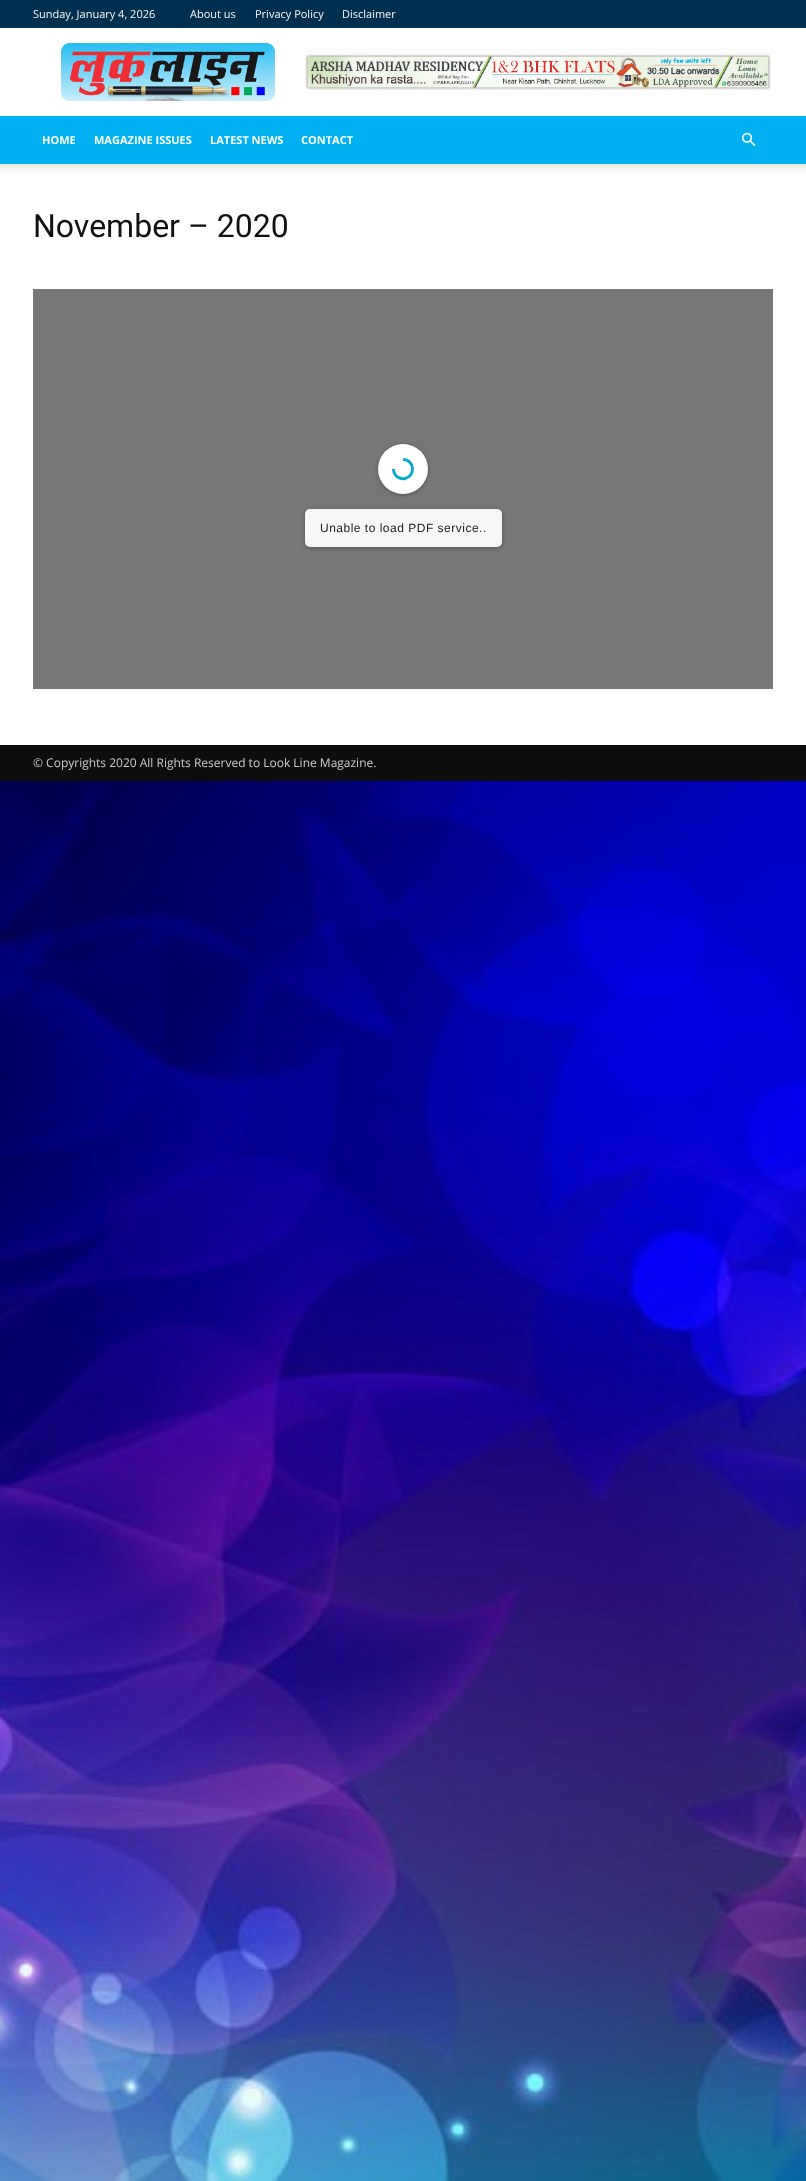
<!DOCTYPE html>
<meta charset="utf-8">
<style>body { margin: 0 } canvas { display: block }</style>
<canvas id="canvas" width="806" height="2181"></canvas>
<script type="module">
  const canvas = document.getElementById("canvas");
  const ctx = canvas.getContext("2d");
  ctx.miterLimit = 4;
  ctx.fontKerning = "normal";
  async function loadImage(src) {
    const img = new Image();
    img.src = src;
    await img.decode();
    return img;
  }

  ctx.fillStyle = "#ffffff";
  ctx.fillRect(0, 0, 806, 2181);
  ctx.fillStyle = "#002f4f";
  ctx.fillRect(0, 0, 806, 28);
  ctx.font = "11px Open Sans";
  ctx.fillStyle = "#f9f9f9";
  ctx.fillText("Sunday, January 4, 2026", 33, 18);
  ctx.fillText("About us", 190, 18);
  ctx.fillText("Privacy Policy", 255, 18);
  ctx.fillText("Disclaimer", 342, 18);
  ctx.drawImage(await loadImage("img1.png"), 61, 43, 214, 58);
  ctx.drawImage(await loadImage("img2.png"), 305, 52, 466, 38);
  ctx.fillStyle = "#00b1f2";
  ctx.fillRect(0, 116, 806, 48);
  ctx.font = "bold 11px Open Sans";
  ctx.fillStyle = "#ffffff";
  ctx.fillText("HOME", 42, 144);
  ctx.fillText("MAGAZINE ISSUES", 94, 144);
  ctx.fillText("LATEST NEWS", 210, 144);
  ctx.fillText("CONTACT", 301, 144);
  ctx.drawImage(await loadImage("img3.png"), 742, 132, 14, 15);
  ctx.drawImage(await loadImage("img4.png"), 0, 164, 806, 9);
  ctx.font = "32px Roboto";
  ctx.fillStyle = "#111111";
  ctx.fillText("November – 2020", 33, 237);
  ctx.fillStyle = "#777777";
  ctx.fillRect(33, 289, 740, 400);
  ctx.fillStyle = "rgba(0, 0, 0, 0.3)";
  ctx.filter = "blur(2px)";
  ctx.beginPath();
  ctx.roundRect(378, 445, 50, 50, 25);
  ctx.fill();
  ctx.filter = "none";
  ctx.fillStyle = "#ffffff";
  ctx.beginPath();
  ctx.arc(403, 469, 25, 0, Math.PI * 2);
  ctx.fill();
  ctx.beginPath();
  ctx.moveTo(403, 459.5);
  ctx.bezierCurveTo(414.5, 459.5, 416, 476, 405, 478.5);
  ctx.bezierCurveTo(402.5, 479, 400, 478.5, 397.5, 477);
  ctx.bezierCurveTo(395, 475, 393.5, 472, 393.5, 469);
  ctx.strokeStyle = "#07abcc";
  ctx.lineWidth = 2.9;
  ctx.stroke();
  ctx.fillStyle = "rgba(0, 0, 0, 0.3)";
  ctx.filter = "blur(2px)";
  ctx.beginPath();
  ctx.roundRect(305, 510, 197, 38, 5);
  ctx.fill();
  ctx.filter = "none";
  ctx.fillStyle = "#f7f7f7";
  ctx.beginPath();
  ctx.roundRect(305, 509, 197, 38, 5);
  ctx.fill();
  ctx.letterSpacing = "0.5px";
  ctx.font = "12px Liberation Sans";
  ctx.fillStyle = "#222222";
  ctx.fillText("Unable to load PDF service..", 320, 532);
  ctx.fillStyle = "#0d0d0d";
  ctx.fillRect(0, 745, 806, 36);
  ctx.letterSpacing = "0px";
  ctx.font = "12px Open Sans";
  ctx.fillStyle = "#cccccc";
  ctx.fillText("© Copyrights 2020 All Rights Reserved to Look Line Magazine.", 33, 767);
  ctx.drawImage(await loadImage("img5.png"), 0, 781, 806, 1400);
</script>
